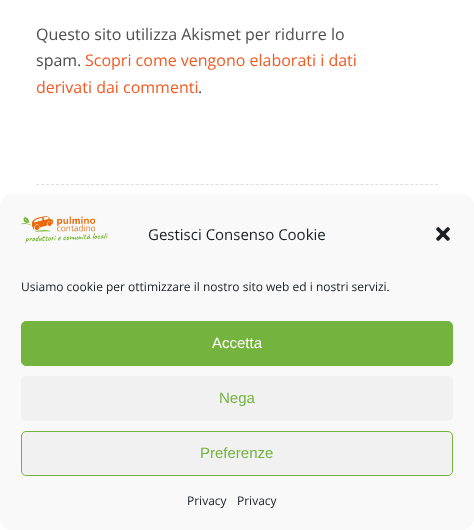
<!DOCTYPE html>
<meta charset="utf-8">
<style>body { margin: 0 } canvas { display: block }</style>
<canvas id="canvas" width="474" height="530"></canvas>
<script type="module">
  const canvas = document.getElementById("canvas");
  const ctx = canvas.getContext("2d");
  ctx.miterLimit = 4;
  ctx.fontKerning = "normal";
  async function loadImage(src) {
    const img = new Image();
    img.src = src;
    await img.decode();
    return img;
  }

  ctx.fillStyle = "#ffffff";
  ctx.fillRect(0, 0, 474, 530);
  ctx.font = "16px Open Sans";
  ctx.fillStyle = "#4d4d4d";
  ctx.fillText("Questo sito utilizza Akismet per ridurre lo", 36, 40);
  ctx.fillText("spam.", 36, 66);
  ctx.fillStyle = "#f15a23";
  ctx.fillText("Scopri come vengono elaborati i dati", 85, 66);
  ctx.fillText("derivati dai commenti", 36, 93);
  ctx.fillStyle = "#4d4d4d";
  ctx.fillText(".", 198, 93);
  ctx.beginPath();
  ctx.moveTo(36, 184.5);
  ctx.lineTo(438, 184.5);
  ctx.strokeStyle = "#dddddd";
  ctx.setLineDash([3, 1.99]);
  ctx.stroke();
  ctx.fillStyle = "#808080";
  ctx.filter = "blur(2.5px)";
  ctx.beginPath();
  ctx.roundRect(404, 456, 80, 60, 2);
  ctx.fill();
  ctx.filter = "none";
  ctx.fillStyle = "#f9f9f9";
  ctx.beginPath();
  ctx.roundRect(0, 194, 474, 336, 12);
  ctx.fill();
  ctx.drawImage(await loadImage("img1.png"), 21, 216, 87, 28);
  ctx.font = "15px Open Sans";
  ctx.fillStyle = "#191e23";
  ctx.fillText("Gestisci Consenso Cookie", 148, 240);
  ctx.drawImage(await loadImage("img2.png"), 436, 227, 14, 14);
  ctx.font = "12px Open Sans";
  ctx.fillText("Usiamo cookie per ottimizzare il nostro sito web ed i nostri servizi.", 21, 291);
  ctx.fillStyle = "#75b33f";
  ctx.beginPath();
  ctx.roundRect(21.5, 321.5, 431, 44, 4.5);
  ctx.fill();
  ctx.strokeStyle = "#75b33f";
  ctx.setLineDash([]);
  ctx.stroke();
  ctx.font = "15px Liberation Sans";
  ctx.fillStyle = "#ffffff";
  ctx.fillText("Accetta", 212, 348);
  ctx.fillStyle = "#f1f1f1";
  ctx.beginPath();
  ctx.roundRect(21, 376, 432, 45, 5);
  ctx.fill();
  ctx.fillStyle = "#75b33f";
  ctx.fillText("Nega", 219, 403);
  ctx.fillStyle = "#f1f1f1";
  ctx.beginPath();
  ctx.roundRect(21.5, 431.5, 431, 44, 4.5);
  ctx.fill();
  ctx.stroke();
  ctx.fillStyle = "#75b33f";
  ctx.fillText("Preferenze", 200, 458);
  ctx.font = "12px Open Sans";
  ctx.fillStyle = "#191e23";
  ctx.fillText("Privacy", 187, 505);
  ctx.fillText("Privacy", 237, 505);
</script>
